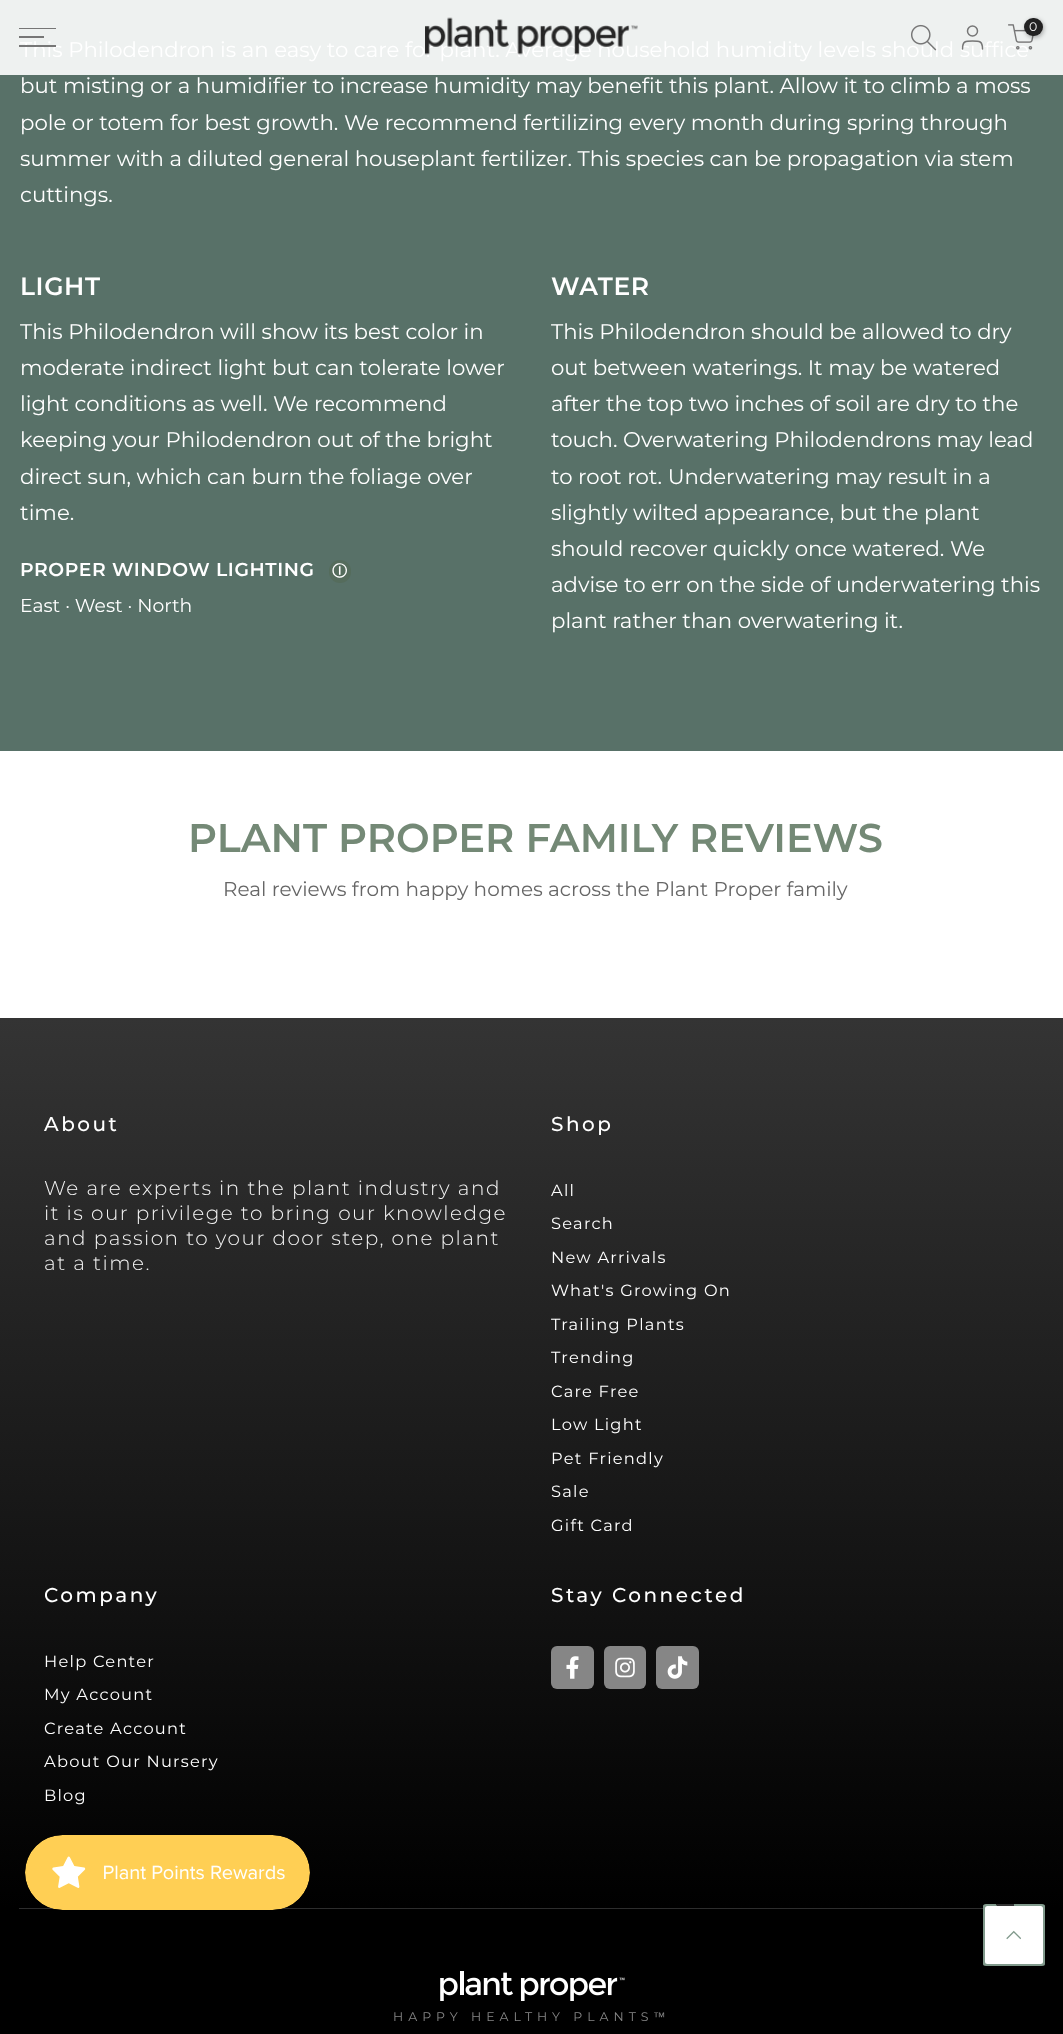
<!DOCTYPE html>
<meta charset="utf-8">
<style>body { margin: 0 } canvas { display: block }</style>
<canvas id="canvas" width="1063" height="2034"></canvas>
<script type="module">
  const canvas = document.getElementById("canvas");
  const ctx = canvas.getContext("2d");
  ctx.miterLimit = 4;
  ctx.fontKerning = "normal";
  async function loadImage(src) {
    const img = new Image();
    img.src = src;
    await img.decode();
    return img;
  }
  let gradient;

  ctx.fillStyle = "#ffffff";
  ctx.fillRect(0, 0, 1063, 2034);
  ctx.fillStyle = "#eef1f0";
  ctx.fillRect(0, 0, 1063, 75);
  ctx.font = "21.25px Montserrat";
  ctx.fillStyle = "#ffffff";
  ctx.fillText("This Philodendron is an easy to care for plant. Average household humidity levels should suffice", 20, 57);
  ctx.drawImage(await loadImage("img1.png"), 425, 17, 213, 38);
  ctx.drawImage(await loadImage("img2.png"), 911, 24, 26, 27);
  ctx.beginPath();
  ctx.arc(972.5, 31, 5, 0, Math.PI * 2);
  ctx.strokeStyle = "#767676";
  ctx.lineWidth = 1.5;
  ctx.stroke();
  ctx.beginPath();
  ctx.moveTo(982.5, 49);
  ctx.bezierCurveTo(982.5, 41, 979.5, 41, 972.5, 41);
  ctx.bezierCurveTo(965.5, 41, 962.5, 41, 962.5, 49);
  ctx.lineCap = "round";
  ctx.lineJoin = "round";
  ctx.stroke();
  ctx.drawImage(await loadImage("img3.png"), 1008, 24, 26, 26);
  ctx.fillStyle = "rgba(0, 0, 0, 0.3)";
  ctx.filter = "blur(2px)";
  ctx.beginPath();
  ctx.roundRect(1025, 19, 19, 19, 9.5);
  ctx.fill();
  ctx.filter = "none";
  ctx.fillStyle = "#222222";
  ctx.beginPath();
  ctx.roundRect(1024, 18, 19, 18, 9);
  ctx.fill();
  ctx.font = "12.5px Montserrat";
  ctx.fillStyle = "#f5f5f5";
  ctx.fillText("0", 1029, 31);
  ctx.fillStyle = "#767676";
  ctx.fillRect(19, 28, 37, 1);
  ctx.fillRect(19, 36, 25, 2);
  ctx.fillRect(19, 45, 37, 2);
  ctx.fillStyle = "#587168";
  ctx.fillRect(0, 75, 1063, 676);
  ctx.font = "21.25px Montserrat";
  ctx.fillStyle = "#ffffff";
  ctx.fillText("but misting or a humidifier to increase humidity may benefit this plant. Allow it to climb a moss", 20, 93);
  ctx.fillText("pole or totem for best growth. We recommend fertilizing every month during spring through", 20, 130);
  ctx.fillText("summer with a diluted general houseplant fertilizer. This species can be propagation via stem", 20, 166);
  ctx.fillText("cuttings.", 20, 202);
  ctx.letterSpacing = "0.6px";
  ctx.font = "600 25px Montserrat";
  ctx.fillText("LIGHT", 20, 295);
  ctx.letterSpacing = "0px";
  ctx.font = "21.25px Montserrat";
  ctx.fillText("This Philodendron will show its best color in", 20, 339);
  ctx.fillText("moderate indirect light but can tolerate lower", 20, 375);
  ctx.fillText("light conditions as well. We recommend", 20, 411);
  ctx.fillText("keeping your Philodendron out of the bright", 20, 447);
  ctx.fillText("direct sun, which can burn the foliage over", 20, 484);
  ctx.fillText("time.", 20, 520);
  ctx.letterSpacing = "0.6px";
  ctx.font = "600 18.75px Montserrat";
  ctx.fillText("PROPER WINDOW LIGHTING", 20, 576);
  ctx.fillStyle = "#556c5c";
  ctx.beginPath();
  ctx.roundRect(329, 560, 22, 23, 11);
  ctx.fill();
  ctx.font = "bold 15px WenQuanYi Zen Hei";
  ctx.fillStyle = "#ffffff";
  ctx.fillText("Ⓘ", 332, 576);
  ctx.letterSpacing = "0px";
  ctx.font = "18.75px Montserrat";
  ctx.fillText("East · West · North", 20, 612);
  ctx.letterSpacing = "0.6px";
  ctx.font = "600 25px Montserrat";
  ctx.fillText("WATER", 551, 295);
  ctx.letterSpacing = "0px";
  ctx.font = "21.25px Montserrat";
  ctx.fillText("This Philodendron should be allowed to dry", 551, 339);
  ctx.fillText("out between waterings. It may be watered", 551, 375);
  ctx.fillText("after the top two inches of soil are dry to the", 551, 411);
  ctx.fillText("touch. Overwatering Philodendrons may lead", 551, 447);
  ctx.fillText("to root rot. Underwatering may result in a", 551, 484);
  ctx.fillText("slightly wilted appearance, but the plant", 551, 520);
  ctx.fillText("should recover quickly once watered. We", 551, 556);
  ctx.fillText("advise to err on the side of underwatering this", 551, 592);
  ctx.fillText("plant rather than overwatering it.", 551, 628);
  ctx.font = "600 40px Montserrat";
  ctx.fillStyle = "#748976";
  ctx.fillText("PLANT PROPER FAMILY REVIEWS", 188, 852);
  ctx.font = "20px Montserrat";
  ctx.fillStyle = "#666666";
  ctx.fillText("Real reviews from happy homes across the Plant Proper family", 223, 896);
  gradient = ctx.createLinearGradient(532, 1018, 532, 1908);
  gradient.addColorStop(0, "#343434");
  gradient.addColorStop(1, "#000000");
  ctx.fillStyle = gradient;
  ctx.fillRect(0, 1018, 1063, 890);
  ctx.letterSpacing = "2.5px";
  ctx.font = "500 20px Montserrat";
  ctx.fillStyle = "#ffffff";
  ctx.fillText("About", 44, 1131);
  ctx.letterSpacing = "1.5px";
  ctx.font = "300 20px Montserrat";
  ctx.fillStyle = "#f5f5f5";
  ctx.fillText("We are experts in the plant industry and", 44, 1195);
  ctx.fillText("it is our privilege to bring our knowledge", 44, 1220);
  ctx.fillText("and passion to your door step, one plant", 44, 1245);
  ctx.fillText("at a time.", 44, 1270);
  ctx.letterSpacing = "2.5px";
  ctx.font = "500 20px Montserrat";
  ctx.fillStyle = "#ffffff";
  ctx.fillText("Shop", 551, 1131);
  ctx.letterSpacing = "1.25px";
  ctx.font = "16.25px Montserrat";
  ctx.fillText("All", 551, 1196);
  ctx.fillText("Search", 551, 1229);
  ctx.fillText("New Arrivals", 551, 1263);
  ctx.fillText("What's Growing On", 551, 1296);
  ctx.fillText("Trailing Plants", 551, 1330);
  ctx.fillText("Trending", 551, 1363);
  ctx.fillText("Care Free", 551, 1397);
  ctx.fillText("Low Light", 551, 1430);
  ctx.fillText("Pet Friendly", 551, 1464);
  ctx.fillText("Sale", 551, 1497);
  ctx.fillText("Gift Card", 551, 1531);
  ctx.letterSpacing = "2.5px";
  ctx.font = "500 20px Montserrat";
  ctx.fillText("Company", 44, 1602);
  ctx.letterSpacing = "1.25px";
  ctx.font = "16.25px Montserrat";
  ctx.fillText("Help Center", 44, 1667);
  ctx.fillText("My Account", 44, 1700);
  ctx.fillText("Create Account", 44, 1734);
  ctx.fillText("About Our Nursery", 44, 1767);
  ctx.fillText("Blog", 44, 1801);
  ctx.letterSpacing = "2.5px";
  ctx.font = "500 20px Montserrat";
  ctx.fillText("Stay Connected", 551, 1602);
  ctx.fillStyle = "#868686";
  ctx.beginPath();
  ctx.roundRect(551, 1646, 43, 43, 6);
  ctx.fill();
  ctx.drawImage(await loadImage("img4.png"), 566, 1656, 13, 23);
  ctx.beginPath();
  ctx.roundRect(604, 1646, 42, 43, 6);
  ctx.fill();
  ctx.drawImage(await loadImage("img5.png"), 615, 1657, 20, 21);
  ctx.beginPath();
  ctx.roundRect(656, 1646, 43, 43, 6);
  ctx.fill();
  ctx.drawImage(await loadImage("img6.png"), 667, 1656, 21, 23);
  ctx.fillStyle = "#000000";
  ctx.fillRect(0, 1908, 1063, 126);
  ctx.fillStyle = "#2d2d2d";
  ctx.fillRect(19, 1908, 964, 1);
  ctx.drawImage(await loadImage("img7.png"), 440, 1971, 185, 30);
  ctx.letterSpacing = "5px";
  ctx.font = "12.5px Montserrat";
  ctx.fillStyle = "#878787";
  ctx.fillText("HAPPY HEALTHY PLANTS", 393, 2021);
  ctx.font = "12.5px Liberation Sans";
  ctx.fillText("™", 653, 2021);
  ctx.drawImage(await loadImage("img8.png"), 25, 1835, 285, 75);
  ctx.fillStyle = "#80998b";
  ctx.beginPath();
  ctx.moveTo(1014, 1935);
  ctx.lineTo(996, 1904);
  ctx.lineTo(986, 1904);
  ctx.bezierCurveTo(984, 1904, 983, 1905, 983, 1906);
  ctx.lineTo(983, 1964);
  ctx.bezierCurveTo(983, 1965, 984, 1966, 986, 1966);
  ctx.lineTo(1042, 1966);
  ctx.bezierCurveTo(1044, 1966, 1045, 1965, 1045, 1964);
  ctx.lineTo(1045, 1906);
  ctx.bezierCurveTo(1045, 1905, 1044, 1904, 1042, 1904);
  ctx.lineTo(1014, 1904);
  ctx.closePath();
  ctx.fill();
  ctx.fillStyle = "#333333";
  ctx.beginPath();
  ctx.moveTo(1014, 1935);
  ctx.lineTo(1014, 1904);
  ctx.lineTo(996, 1904);
  ctx.closePath();
  ctx.fill();
  ctx.fillStyle = "#ffffff";
  ctx.beginPath();
  ctx.roundRect(985, 1906, 58, 58, 2.5);
  ctx.fill();
  ctx.drawImage(await loadImage("img9.png"), 1006, 1930, 15, 10);
</script>
